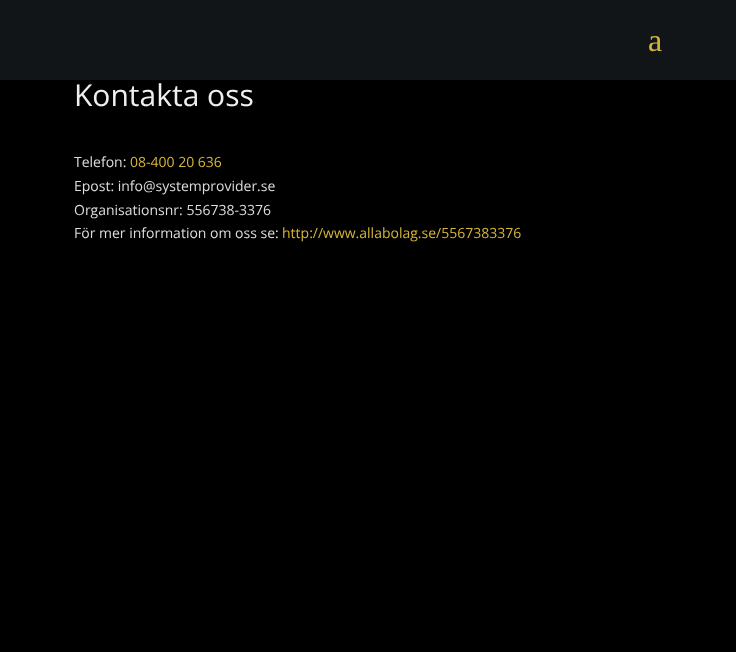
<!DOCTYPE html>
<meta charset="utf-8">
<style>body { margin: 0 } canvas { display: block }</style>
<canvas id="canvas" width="736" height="652"></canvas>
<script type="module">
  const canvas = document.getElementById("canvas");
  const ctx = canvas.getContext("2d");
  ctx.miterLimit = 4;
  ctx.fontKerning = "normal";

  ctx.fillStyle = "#000000";
  ctx.fillRect(0, 0, 736, 652);
  ctx.fillStyle = "#121518";
  ctx.fillRect(0, 0, 736, 80);
  ctx.font = "32px Liberation Serif";
  ctx.fillStyle = "#d6b637";
  ctx.fillText("a", 648, 51);
  ctx.font = "30px Open Sans";
  ctx.fillStyle = "#efefef";
  ctx.fillText("Kontakta oss", 74, 106);
  ctx.font = "14px Open Sans";
  ctx.fillStyle = "#dddddd";
  ctx.fillText("Telefon:", 74, 167);
  ctx.fillStyle = "#d6b637";
  ctx.fillText("08-400 20 636", 130, 167);
  ctx.fillStyle = "#dddddd";
  ctx.fillText("Epost: info@systemprovider.se", 74, 191);
  ctx.fillText("Organisationsnr: 556738-3376", 74, 215);
  ctx.fillText("För mer information om oss se:", 74, 238);
  ctx.fillStyle = "#d6b637";
  ctx.fillText("http://www.allabolag.se/5567383376", 282, 238);
</script>
